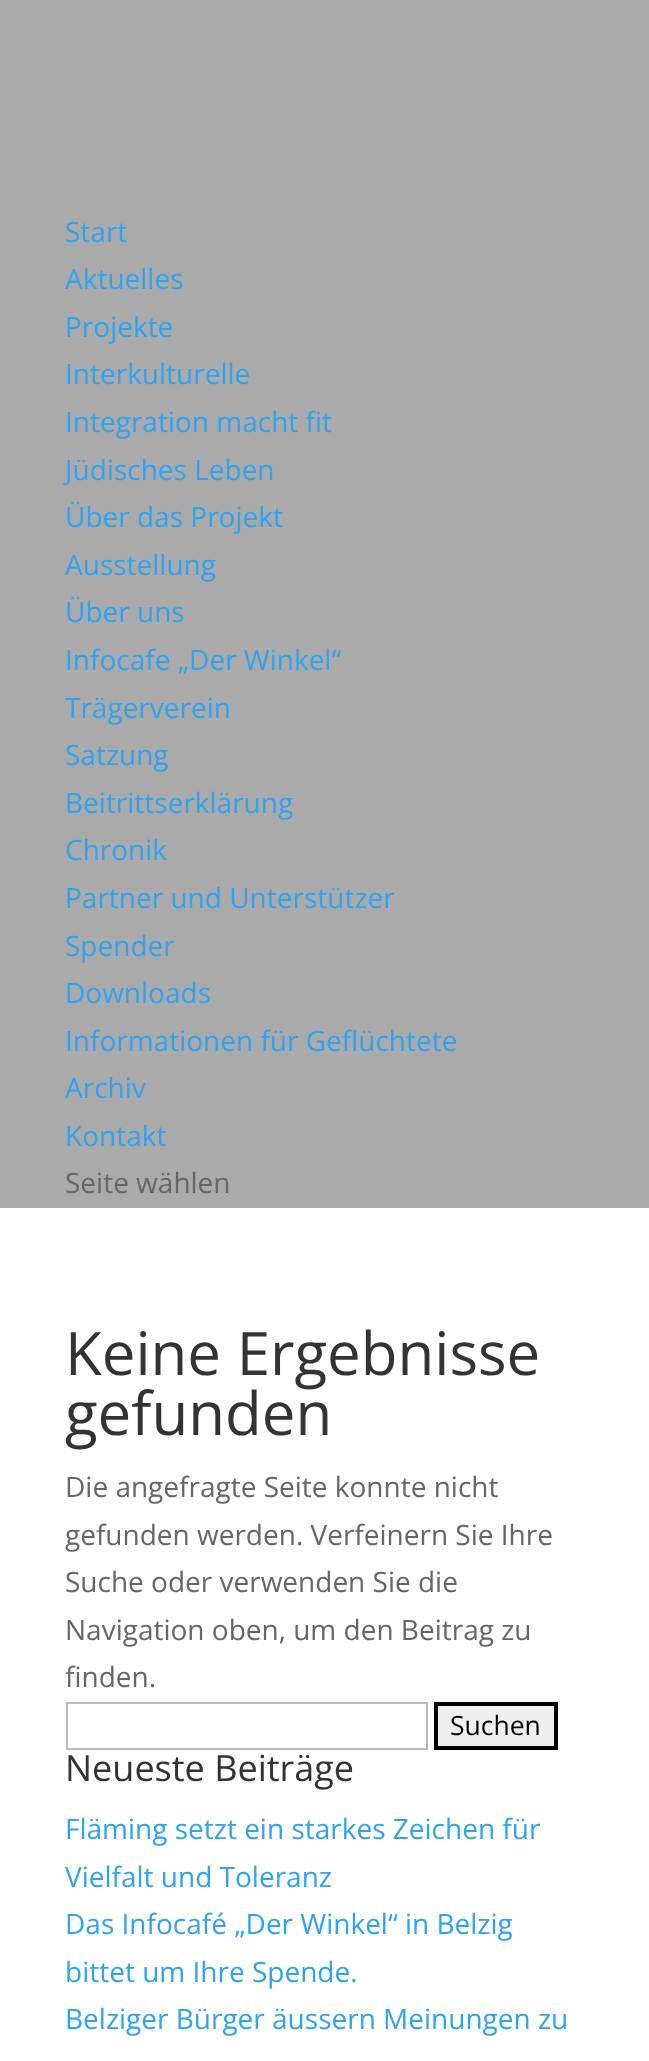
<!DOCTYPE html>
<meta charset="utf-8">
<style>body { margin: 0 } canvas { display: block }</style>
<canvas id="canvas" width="649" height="2061"></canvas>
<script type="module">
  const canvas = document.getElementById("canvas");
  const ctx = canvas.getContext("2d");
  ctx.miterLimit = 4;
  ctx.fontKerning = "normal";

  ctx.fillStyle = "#aaaaaa";
  ctx.fillRect(0, 0, 649, 2061);
  ctx.font = "28px Open Sans";
  ctx.fillStyle = "#2ea3f2";
  ctx.fillText("Start", 65, 242);
  ctx.fillText("Aktuelles", 65, 289);
  ctx.fillText("Projekte", 65, 337);
  ctx.fillText("Interkulturelle", 65, 384);
  ctx.fillText("Integration macht fit", 65, 432);
  ctx.fillText("Jüdisches Leben", 65, 480);
  ctx.fillText("Über das Projekt", 65, 527);
  ctx.fillText("Ausstellung", 65, 575);
  ctx.fillText("Über uns", 65, 622);
  ctx.fillText("Infocafe „Der Winkel“", 65, 670);
  ctx.fillText("Trägerverein", 65, 718);
  ctx.fillText("Satzung", 65, 765);
  ctx.fillText("Beitrittserklärung", 65, 813);
  ctx.fillText("Chronik", 65, 860);
  ctx.fillText("Partner und Unterstützer", 65, 908);
  ctx.fillText("Spender", 65, 956);
  ctx.fillText("Downloads", 65, 1003);
  ctx.fillText("Informationen für Geflüchtete", 65, 1051);
  ctx.fillText("Archiv", 65, 1098);
  ctx.fillText("Kontakt", 65, 1146);
  ctx.fillStyle = "#666666";
  ctx.fillText("Seite wählen", 65, 1193);
  ctx.fillStyle = "#ffffff";
  ctx.fillRect(0, 1208, 649, 853);
  ctx.font = "60px Open Sans";
  ctx.fillStyle = "#333333";
  ctx.fillText("Keine Ergebnisse", 65, 1375);
  ctx.fillText("gefunden", 65, 1435);
  ctx.font = "28px Open Sans";
  ctx.fillStyle = "#666666";
  ctx.fillText("Die angefragte Seite konnte nicht", 65, 1497);
  ctx.fillText("gefunden werden. Verfeinern Sie Ihre", 65, 1545);
  ctx.fillText("Suche oder verwenden Sie die", 65, 1592);
  ctx.fillText("Navigation oben, um den Beitrag zu", 65, 1640);
  ctx.fillText("finden.", 65, 1687);
  ctx.strokeStyle = "#bbbbbb";
  ctx.lineWidth = 2;
  ctx.strokeRect(67, 1703, 360, 46);
  ctx.fillStyle = "#efefef";
  ctx.beginPath();
  ctx.rect(436, 1704, 120, 44);
  ctx.fill();
  ctx.strokeStyle = "#000000";
  ctx.lineWidth = 4;
  ctx.stroke();
  ctx.font = "26.5px Open Sans";
  ctx.fillStyle = "#000000";
  ctx.fillText("Suchen", 450, 1735);
  ctx.font = "36px Open Sans";
  ctx.fillStyle = "#333333";
  ctx.fillText("Neueste Beiträge", 65, 1781);
  ctx.font = "28px Open Sans";
  ctx.fillStyle = "#2ea3f2";
  ctx.fillText("Fläming setzt ein starkes Zeichen für", 65, 1839);
  ctx.fillText("Vielfalt und Toleranz", 65, 1887);
  ctx.fillText("Das Infocafé „Der Winkel“ in Belzig", 65, 1934);
  ctx.fillText("bittet um Ihre Spende.", 65, 1982);
  ctx.fillText("Belziger Bürger äussern Meinungen zu", 65, 2029);
</script>
